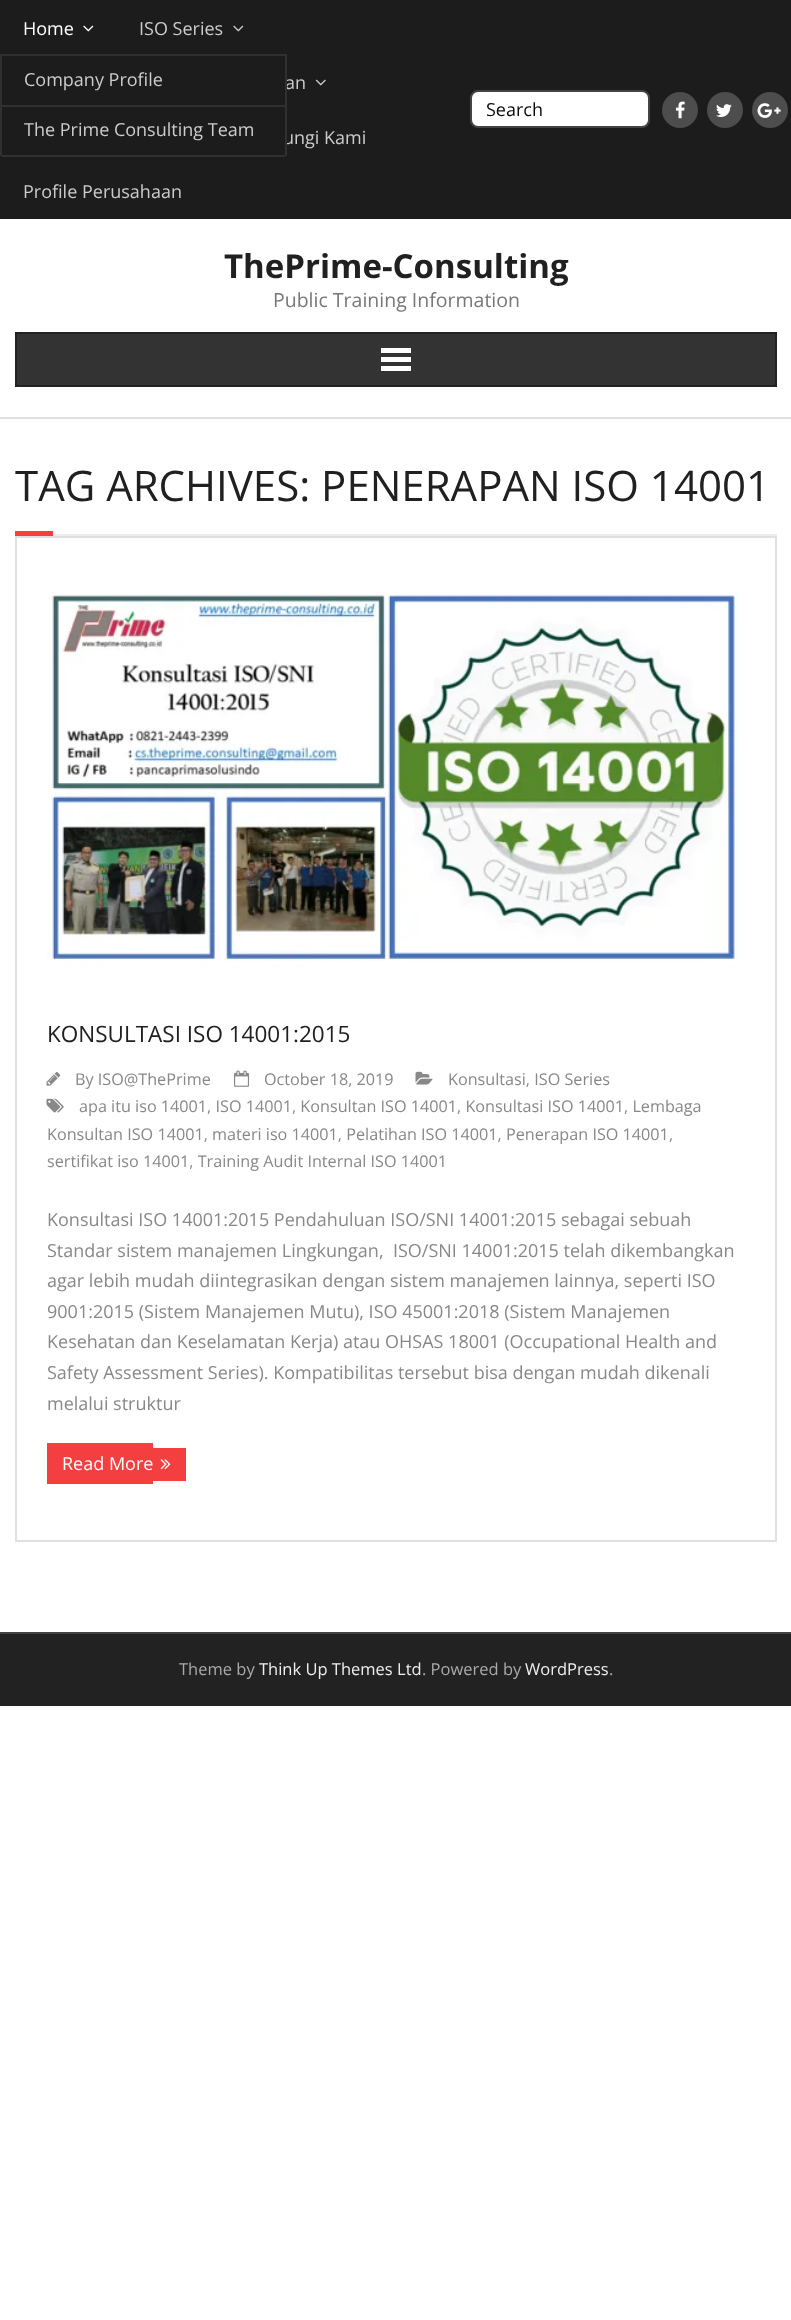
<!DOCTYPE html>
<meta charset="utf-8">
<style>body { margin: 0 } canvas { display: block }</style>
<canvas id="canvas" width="791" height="2320"></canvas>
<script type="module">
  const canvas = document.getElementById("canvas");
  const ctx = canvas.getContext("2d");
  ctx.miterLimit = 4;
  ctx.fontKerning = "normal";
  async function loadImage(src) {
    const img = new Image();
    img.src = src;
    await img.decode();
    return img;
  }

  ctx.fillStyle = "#ffffff";
  ctx.fillRect(0, 0, 791, 2320);
  ctx.fillStyle = "#1c1c1c";
  ctx.fillRect(0, 0, 791, 219);
  ctx.font = "18px Open Sans";
  ctx.fillStyle = "#cccccc";
  ctx.fillText("ISO Series", 139, 35);
  ctx.drawImage(await loadImage("img1.png"), 233, 25, 11, 7);
  ctx.fillStyle = "#ffffff";
  ctx.fillText("Home", 23, 35);
  ctx.drawImage(await loadImage("img2.png"), 83, 25, 11, 7);
  ctx.fillStyle = "#cccccc";
  ctx.fillText("ungi Kami", 283, 144);
  ctx.fillStyle = "#1c1c1c";
  ctx.fillRect(284, 134, 1, 9);
  ctx.fillStyle = "#303030";
  ctx.fillRect(0, 54, 287, 2);
  ctx.fillStyle = "#cccccc";
  ctx.fillText("an", 285, 89);
  ctx.fillStyle = "#303030";
  ctx.fillRect(285, 54, 2, 102);
  ctx.fillRect(0, 54, 2, 102);
  ctx.fillRect(2, 105, 283, 2);
  ctx.fillStyle = "#cccccc";
  ctx.fillText("Company Profile", 24, 86);
  ctx.fillStyle = "#303030";
  ctx.fillRect(2, 155, 283, 2);
  ctx.fillStyle = "#cccccc";
  ctx.fillText("The Prime Consulting Team", 24, 136);
  ctx.drawImage(await loadImage("img3.png"), 315, 79, 11, 7);
  ctx.fillText("Profile Perusahaan", 23, 198);
  ctx.fillStyle = "#ffffff";
  ctx.beginPath();
  ctx.roundRect(471, 91, 178, 36, 7);
  ctx.fill();
  ctx.strokeStyle = "#444444";
  ctx.lineWidth = 2;
  ctx.stroke();
  ctx.fillStyle = "#0a0a0a";
  ctx.fillText("Search", 486, 116);
  ctx.fillStyle = "#4d4d4d";
  ctx.beginPath();
  ctx.arc(680, 110, 18, 0, Math.PI * 2);
  ctx.fill();
  ctx.drawImage(await loadImage("img4.png"), 675, 101, 10, 18);
  ctx.beginPath();
  ctx.arc(725, 110, 18, 0, Math.PI * 2);
  ctx.fill();
  ctx.drawImage(await loadImage("img5.png"), 716, 104, 16, 13);
  ctx.beginPath();
  ctx.arc(770, 110, 18, 0, Math.PI * 2);
  ctx.fill();
  ctx.drawImage(await loadImage("img6.png"), 757, 103, 24, 15);
  ctx.fillStyle = "#e0e0e0";
  ctx.fillRect(0, 417, 791, 2);
  ctx.font = "bold 33px Open Sans";
  ctx.fillStyle = "#202020";
  ctx.fillText("ThePrime-Consulting", 224, 278);
  ctx.font = "19.5px Open Sans";
  ctx.fillStyle = "#777777";
  ctx.fillText("Public Training Information", 273, 307);
  ctx.fillStyle = "#333333";
  ctx.beginPath();
  ctx.rect(16, 333, 760, 53);
  ctx.fill();
  ctx.strokeStyle = "#222222";
  ctx.stroke();
  ctx.fillStyle = "#ffffff";
  ctx.fillRect(381, 348, 30, 5);
  ctx.fillRect(381, 357, 30, 5);
  ctx.fillRect(381, 366, 30, 5);
  ctx.font = "42px Open Sans";
  ctx.fillStyle = "#202020";
  ctx.fillText("TAG ARCHIVES: PENERAPAN ISO 14001", 15, 501);
  ctx.fillStyle = "#f33f3f";
  ctx.fillRect(15, 531, 38, 5);
  ctx.fillStyle = "#eeeeee";
  ctx.fillRect(53, 534, 724, 2);
  ctx.strokeStyle = "#e0e0e0";
  ctx.strokeRect(16, 537, 760, 1004);
  ctx.drawImage(await loadImage("img7.png"), 47, 592, 691, 369);
  ctx.font = "22.5px Open Sans";
  ctx.fillStyle = "#202020";
  ctx.fillText("KONSULTASI ISO 14001:2015", 47, 1042);
  ctx.drawImage(await loadImage("img8.png"), 46, 1072, 15, 14);
  ctx.font = "16.2px Open Sans";
  ctx.fillStyle = "#888888";
  ctx.fillText("By ISO@ThePrime", 75, 1085);
  ctx.drawImage(await loadImage("img9.png"), 234, 1070, 16, 17);
  ctx.fillText("October 18, 2019", 264, 1085);
  ctx.drawImage(await loadImage("img10.png"), 415, 1071, 18, 14);
  ctx.fillText("Konsultasi, ISO Series", 448, 1085);
  ctx.drawImage(await loadImage("img11.png"), 46, 1098, 18, 15);
  ctx.fillText("apa itu iso 14001, ISO 14001, Konsultan ISO 14001, Konsultasi ISO 14001, Lembaga", 79, 1112);
  ctx.fillText("Konsultan ISO 14001, materi iso 14001, Pelatihan ISO 14001, Penerapan ISO 14001,", 47, 1140);
  ctx.fillText("sertifikat iso 14001, Training Audit Internal ISO 14001", 47, 1167);
  ctx.font = "18px Open Sans";
  ctx.fillText("Konsultasi ISO 14001:2015 Pendahuluan ISO/SNI 14001:2015 sebagai sebuah", 47, 1226);
  ctx.fillText("Standar sistem manajemen Lingkungan,  ISO/SNI 14001:2015 telah dikembangkan", 47, 1257);
  ctx.fillText("agar lebih mudah diintegrasikan dengan sistem manajemen lainnya, seperti ISO", 47, 1287);
  ctx.fillText("9001:2015 (Sistem Manajemen Mutu), ISO 45001:2018 (Sistem Manajemen", 47, 1318);
  ctx.fillText("Kesehatan dan Keselamatan Kerja) atau OHSAS 18001 (Occupational Health and", 47, 1348);
  ctx.fillText("Safety Assessment Series). Kompatibilitas tersebut bisa dengan mudah dikenali", 47, 1379);
  ctx.fillText("melalui struktur", 47, 1410);
  ctx.fillStyle = "#f33f3f";
  ctx.fillRect(47, 1443, 106, 41);
  ctx.fillStyle = "#ffffff";
  ctx.fillText("Read More", 62, 1470);
  ctx.fillStyle = "#f33f3f";
  ctx.fillRect(153, 1448, 33, 33);
  ctx.drawImage(await loadImage("img12.png"), 160, 1459, 11, 11);
  ctx.fillStyle = "#222222";
  ctx.fillRect(0, 1634, 791, 72);
  ctx.fillStyle = "#444444";
  ctx.fillRect(0, 1632, 791, 2);
  ctx.font = "16.5px Open Sans";
  ctx.fillStyle = "#aaaaaa";
  ctx.fillText("Theme by", 179, 1675);
  ctx.fillStyle = "#eeeeee";
  ctx.fillText("Think Up Themes Ltd", 259, 1675);
  ctx.fillStyle = "#aaaaaa";
  ctx.fillText(". Powered by", 422, 1675);
  ctx.fillStyle = "#eeeeee";
  ctx.fillText("WordPress", 525, 1675);
  ctx.fillStyle = "#aaaaaa";
  ctx.fillText(".", 609, 1675);
</script>
